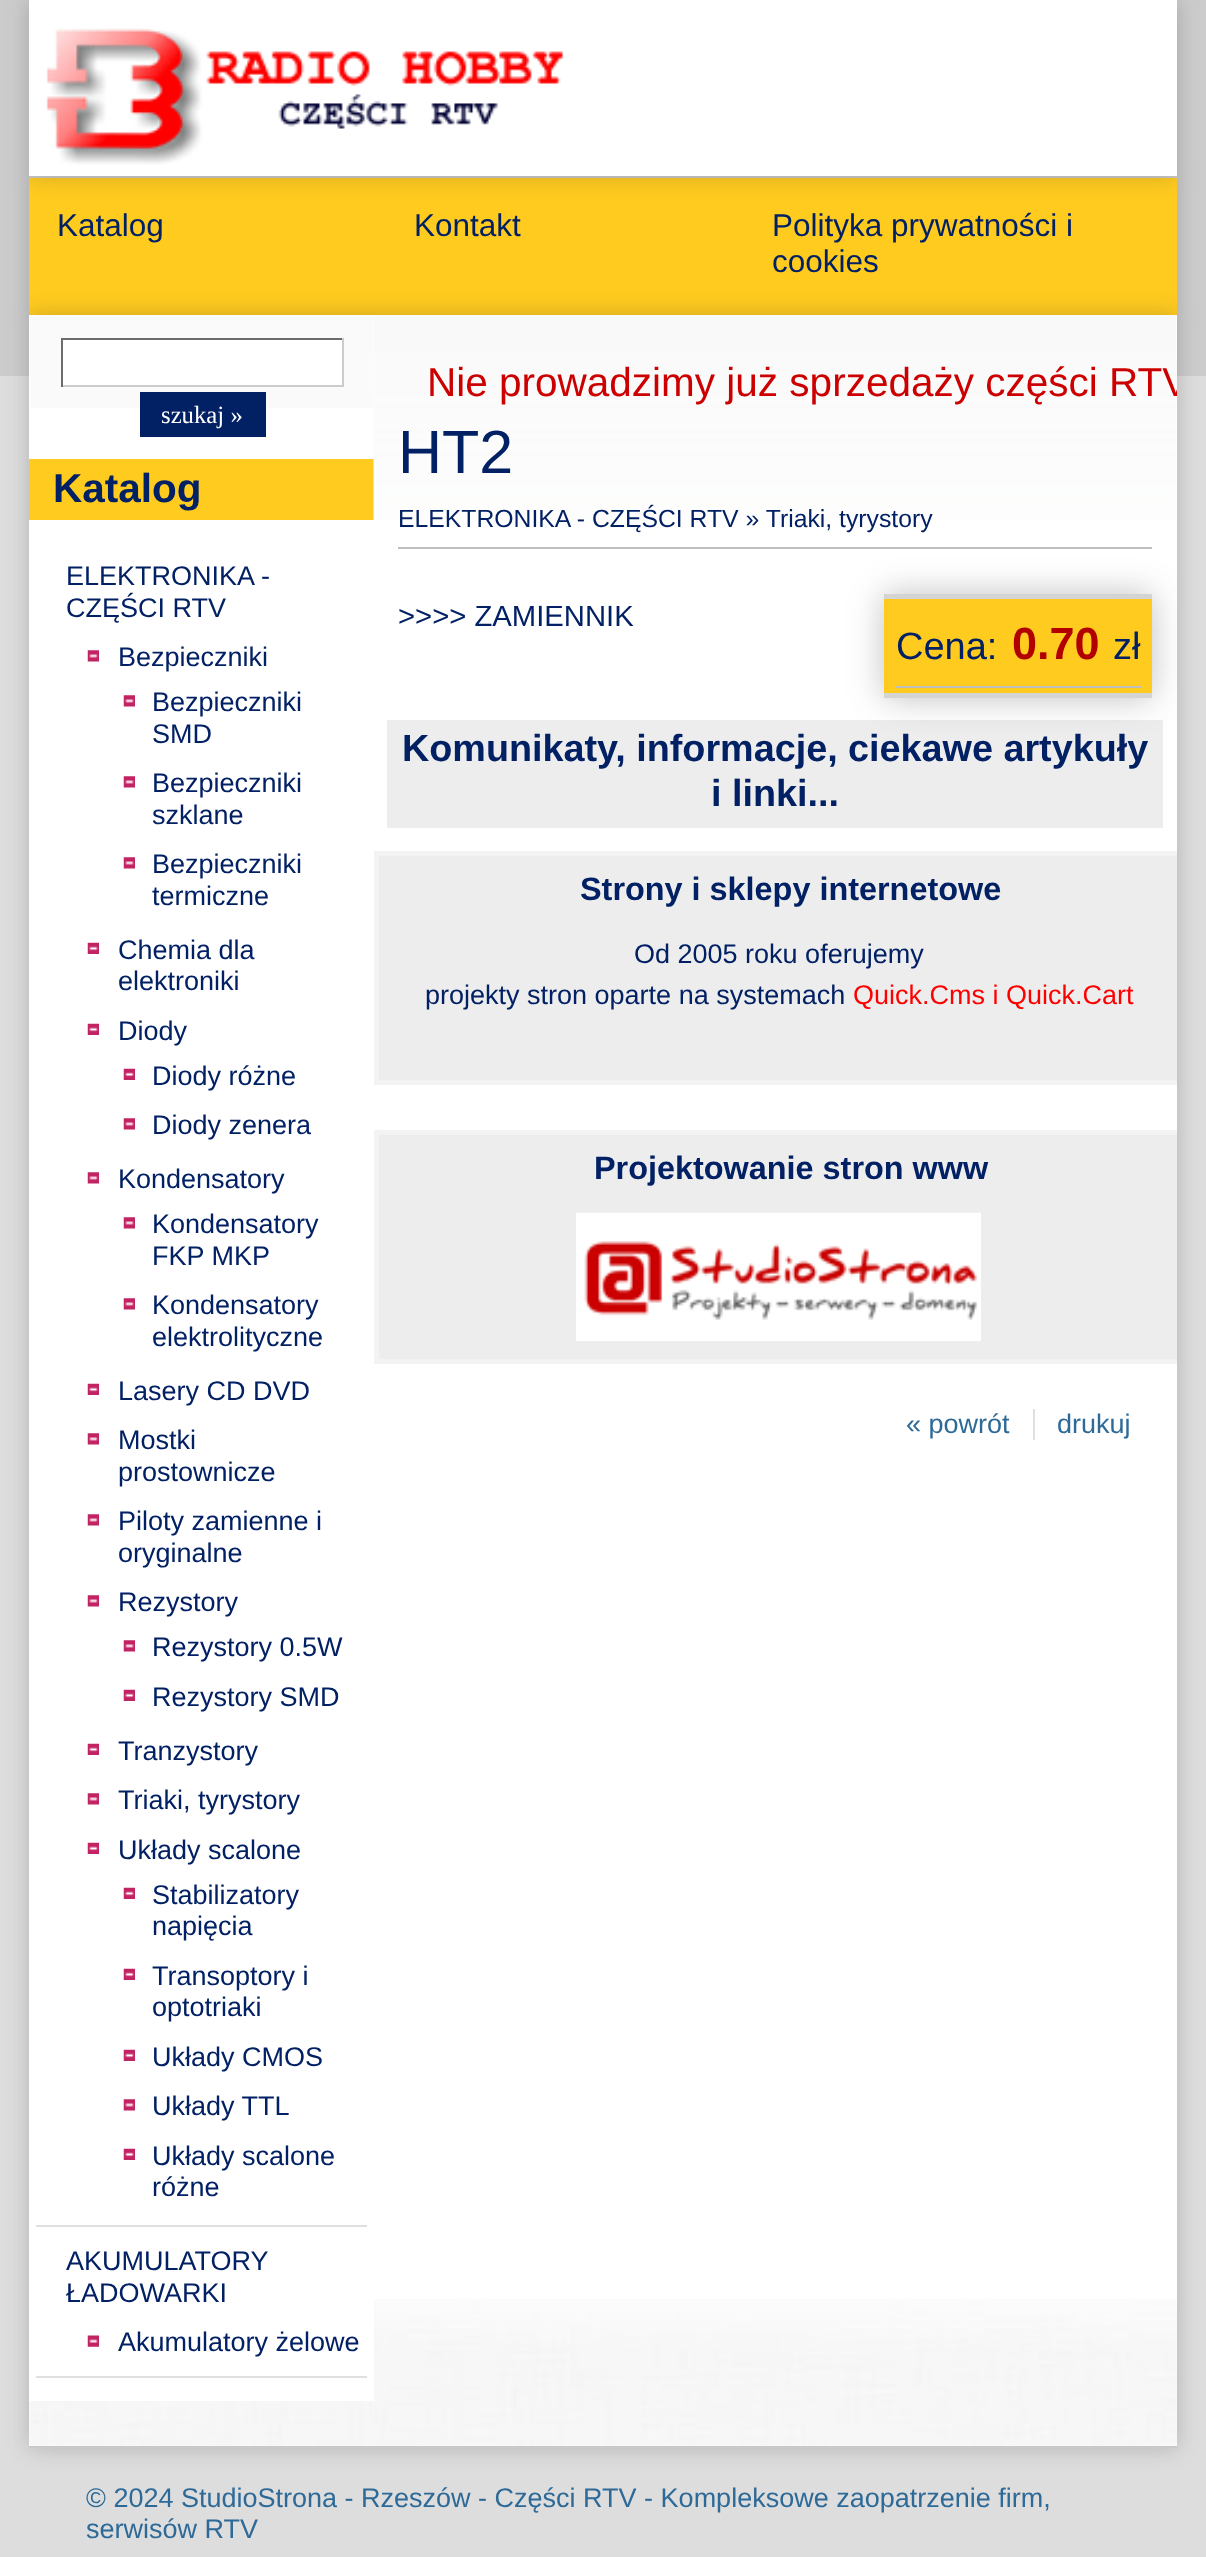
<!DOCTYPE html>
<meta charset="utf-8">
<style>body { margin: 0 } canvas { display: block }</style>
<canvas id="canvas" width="1206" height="2557"></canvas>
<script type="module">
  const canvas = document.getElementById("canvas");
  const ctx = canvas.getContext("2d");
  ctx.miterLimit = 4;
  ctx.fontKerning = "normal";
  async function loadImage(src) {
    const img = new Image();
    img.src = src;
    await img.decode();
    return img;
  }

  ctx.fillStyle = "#dddddd";
  ctx.fillRect(0, 0, 1206, 2557);
  ctx.fillStyle = "#cccccc";
  ctx.fillRect(0, 0, 1206, 376);
  ctx.fillStyle = "rgba(50, 50, 50, 0.25)";
  ctx.filter = "blur(11px)";
  ctx.beginPath();
  ctx.rect(29, 176, 1148, 139);
  ctx.fill();
  ctx.filter = "none";
  ctx.fillStyle = "#ffcb1f";
  ctx.fillRect(29, 178, 1148, 137);
  ctx.fillStyle = "#c9c9c9";
  ctx.fillRect(29, 176, 1148, 2);
  ctx.fillStyle = "rgba(50, 50, 50, 0.25)";
  ctx.filter = "blur(11px)";
  ctx.beginPath();
  ctx.rect(29, 0, 1148, 176);
  ctx.fill();
  ctx.filter = "none";
  ctx.fillStyle = "#ffffff";
  ctx.fillRect(29, 0, 1148, 176);
  ctx.drawImage(await loadImage("img1.png"), 46, 28, 518, 137);
  ctx.font = "31.5px Liberation Sans";
  ctx.fillStyle = "#022064";
  ctx.fillText("Katalog", 57, 236);
  ctx.fillText("Kontakt", 414, 236);
  ctx.fillText("Polityka prywatności i", 772, 236);
  ctx.fillText("cookies", 772, 272);
  ctx.fillStyle = "rgba(50, 50, 50, 0.25)";
  ctx.filter = "blur(11px)";
  ctx.beginPath();
  ctx.rect(29, 315, 1148, 2133);
  ctx.fill();
  ctx.filter = "none";
  ctx.fillStyle = "#ffffff";
  ctx.fillRect(29, 315, 1148, 2131);
  ctx.drawImage(await loadImage("img2.png"), 29, 2299, 1148, 147);
  ctx.fillStyle = "#c9c9c9";
  ctx.fillRect(29, 2446, 1148, 2);
  ctx.fillStyle = "#fafafa";
  ctx.fillRect(30, 315, 343, 93);
  ctx.fillStyle = "#ffffff";
  ctx.fillRect(63, 340, 279, 45);
  ctx.fillStyle = "#6c6c6c";
  ctx.fillRect(61, 338, 283, 2);
  ctx.fillStyle = "#cccccc";
  ctx.fillRect(342, 338, 2, 49);
  ctx.fillRect(61, 385, 283, 2);
  ctx.fillStyle = "#6c6c6c";
  ctx.fillRect(61, 338, 2, 49);
  ctx.fillStyle = "#022064";
  ctx.fillRect(140, 392, 126, 45);
  ctx.font = "24.75px Liberation Serif";
  ctx.fillStyle = "#ffffff";
  ctx.fillText("szukaj »", 161, 423);
  ctx.fillStyle = "#ffcb1f";
  ctx.fillRect(29, 459, 345, 61);
  ctx.font = "bold 40.5px Liberation Sans";
  ctx.fillStyle = "#022064";
  ctx.fillText("Katalog", 53, 502);
  ctx.fillStyle = "#ffffff";
  ctx.fillRect(29, 2299, 345, 102);
  ctx.fillStyle = "#e0e0e0";
  ctx.fillRect(36, 2225, 331, 2);
  ctx.font = "27px Liberation Sans";
  ctx.fillStyle = "#022064";
  ctx.fillText("ELEKTRONIKA -", 66, 585);
  ctx.fillText("CZĘŚCI RTV", 66, 617);
  ctx.drawImage(await loadImage("img3.png"), 87, 650, 12, 12);
  ctx.fillText("Bezpieczniki", 118, 666);
  ctx.drawImage(await loadImage("img3.png"), 123, 695, 12, 12);
  ctx.fillText("Bezpieczniki", 152, 711);
  ctx.fillText("SMD", 152, 743);
  ctx.drawImage(await loadImage("img3.png"), 123, 776, 12, 12);
  ctx.fillText("Bezpieczniki", 152, 792);
  ctx.fillText("szklane", 152, 824);
  ctx.drawImage(await loadImage("img3.png"), 123, 857, 12, 12);
  ctx.fillText("Bezpieczniki", 152, 873);
  ctx.fillText("termiczne", 152, 905);
  ctx.drawImage(await loadImage("img4.png"), 87, 942, 12, 12);
  ctx.fillText("Chemia dla", 118, 959);
  ctx.fillText("elektroniki", 118, 990);
  ctx.drawImage(await loadImage("img4.png"), 87, 1023, 12, 12);
  ctx.fillText("Diody", 118, 1040);
  ctx.drawImage(await loadImage("img4.png"), 123, 1068, 12, 12);
  ctx.fillText("Diody różne", 152, 1085);
  ctx.drawImage(await loadImage("img3.png"), 123, 1118, 12, 12);
  ctx.fillText("Diody zenera", 152, 1134);
  ctx.drawImage(await loadImage("img3.png"), 87, 1172, 12, 12);
  ctx.fillText("Kondensatory", 118, 1188);
  ctx.drawImage(await loadImage("img3.png"), 123, 1217, 12, 12);
  ctx.fillText("Kondensatory", 152, 1233);
  ctx.fillText("FKP MKP", 152, 1265);
  ctx.drawImage(await loadImage("img3.png"), 123, 1298, 12, 12);
  ctx.fillText("Kondensatory", 152, 1314);
  ctx.fillText("elektrolityczne", 152, 1346);
  ctx.drawImage(await loadImage("img4.png"), 87, 1383, 12, 12);
  ctx.fillText("Lasery CD DVD", 118, 1400);
  ctx.drawImage(await loadImage("img3.png"), 87, 1433, 12, 12);
  ctx.fillText("Mostki", 118, 1449);
  ctx.fillText("prostownicze", 118, 1481);
  ctx.drawImage(await loadImage("img3.png"), 87, 1514, 12, 12);
  ctx.fillText("Piloty zamienne i", 118, 1530);
  ctx.fillText("oryginalne", 118, 1562);
  ctx.drawImage(await loadImage("img3.png"), 87, 1595, 12, 12);
  ctx.fillText("Rezystory", 118, 1611);
  ctx.drawImage(await loadImage("img3.png"), 123, 1640, 12, 12);
  ctx.fillText("Rezystory 0.5W", 152, 1656);
  ctx.drawImage(await loadImage("img4.png"), 123, 1689, 12, 12);
  ctx.fillText("Rezystory SMD", 152, 1706);
  ctx.drawImage(await loadImage("img4.png"), 87, 1743, 12, 12);
  ctx.fillText("Tranzystory", 118, 1760);
  ctx.drawImage(await loadImage("img3.png"), 87, 1793, 12, 12);
  ctx.fillText("Triaki, tyrystory", 118, 1809);
  ctx.drawImage(await loadImage("img4.png"), 87, 1842, 12, 12);
  ctx.fillText("Układy scalone", 118, 1859);
  ctx.drawImage(await loadImage("img4.png"), 123, 1887, 12, 12);
  ctx.fillText("Stabilizatory", 152, 1904);
  ctx.fillText("napięcia", 152, 1935);
  ctx.drawImage(await loadImage("img4.png"), 123, 1968, 12, 12);
  ctx.fillText("Transoptory i", 152, 1985);
  ctx.fillText("optotriaki", 152, 2016);
  ctx.drawImage(await loadImage("img4.png"), 123, 2049, 12, 12);
  ctx.fillText("Układy CMOS", 152, 2066);
  ctx.drawImage(await loadImage("img3.png"), 123, 2099, 12, 12);
  ctx.fillText("Układy TTL", 152, 2115);
  ctx.drawImage(await loadImage("img4.png"), 123, 2148, 12, 12);
  ctx.fillText("Układy scalone", 152, 2165);
  ctx.fillText("różne", 152, 2196);
  ctx.fillStyle = "#e0e0e0";
  ctx.fillRect(36, 2376, 331, 2);
  ctx.fillStyle = "#022064";
  ctx.fillText("AKUMULATORY", 66, 2270);
  ctx.fillText("ŁADOWARKI", 66, 2302);
  ctx.drawImage(await loadImage("img5.png"), 87, 2335, 12, 12);
  ctx.fillText("Akumulatory żelowe", 118, 2351);
  ctx.drawImage(await loadImage("img6.png"), 373, 315, 803, 205);
  ctx.fillStyle = "#fafafa";
  ctx.fillRect(1176, 360, 1, 42);
  ctx.save();
  ctx.beginPath();
  ctx.rect(29, 315, 1148, 2131);
  ctx.clip();
  ctx.font = "40.5px Liberation Sans";
  ctx.fillStyle = "#cc0000";
  ctx.fillText("Nie prowadzimy już sprzedaży części RTV", 427, 396);
  ctx.restore();
  ctx.font = "61px Liberation Sans";
  ctx.fillStyle = "#022064";
  ctx.fillText("HT2", 398, 473);
  ctx.fillStyle = "#bebebe";
  ctx.fillRect(398, 547, 754, 2);
  ctx.font = "24.75px Liberation Sans";
  ctx.fillStyle = "#022064";
  ctx.fillText("ELEKTRONIKA - CZĘŚCI RTV » Triaki, tyrystory", 398, 527);
  ctx.font = "29.25px Liberation Sans";
  ctx.fillText(">>>> ZAMIENNIK", 398, 626);
  ctx.fillStyle = "#ededed";
  ctx.fillRect(387, 720, 776, 108);
  ctx.save();
  ctx.beginPath();
  ctx.rect(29, 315, 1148, 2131);
  ctx.clip();
  ctx.fillStyle = "rgba(48, 47, 47, 0.3)";
  ctx.filter = "blur(17px)";
  ctx.beginPath();
  ctx.rect(884, 594, 268, 104);
  ctx.fill();
  ctx.filter = "none";
  ctx.restore();
  ctx.fillStyle = "#ffcb1f";
  ctx.fillRect(884, 599, 268, 94);
  ctx.fillStyle = "#d4d4d4";
  ctx.fillRect(884, 594, 268, 5);
  ctx.fillRect(884, 693, 268, 5);
  ctx.fillStyle = "#bebebe";
  ctx.fillRect(896, 686, 245, 2);
  ctx.font = "38px Liberation Sans";
  ctx.fillStyle = "#022064";
  ctx.fillText("Cena:", 896, 659);
  ctx.font = "bold 45px Liberation Sans";
  ctx.fillStyle = "#b20000";
  ctx.fillText("0.70", 1012, 659);
  ctx.font = "38px Liberation Sans";
  ctx.fillStyle = "#022064";
  ctx.fillText("zł", 1113, 659);
  ctx.font = "bold 37.75px Liberation Sans";
  ctx.fillText("Komunikaty, informacje, ciekawe artykuły", 402, 761);
  ctx.fillText("i linki...", 711, 806);
  ctx.fillStyle = "#ededed";
  ctx.fillRect(379, 856, 798, 224);
  ctx.save();
  ctx.beginPath();
  ctx.rect(29, 315, 1148, 2131);
  ctx.clip();
  ctx.strokeStyle = "#f3f3f3";
  ctx.lineWidth = 5;
  ctx.strokeRect(376.5, 853.5, 807, 229);
  ctx.restore();
  ctx.font = "bold 32.4px Liberation Sans";
  ctx.fillStyle = "#022064";
  ctx.fillText("Strony i sklepy internetowe", 580, 900);
  ctx.font = "27px Liberation Sans";
  ctx.fillText("Od 2005 roku oferujemy", 634, 963);
  ctx.fillText("projekty stron oparte na systemach", 425, 1004);
  ctx.fillStyle = "#ff0000";
  ctx.fillText("Quick.Cms i Quick.Cart", 853, 1004);
  ctx.fillStyle = "#ededed";
  ctx.fillRect(379, 1135, 798, 224);
  ctx.save();
  ctx.beginPath();
  ctx.rect(29, 315, 1148, 2131);
  ctx.clip();
  ctx.strokeStyle = "#f3f3f3";
  ctx.lineWidth = 5;
  ctx.strokeRect(376.5, 1132.5, 807, 229);
  ctx.restore();
  ctx.font = "bold 32.4px Liberation Sans";
  ctx.fillStyle = "#022064";
  ctx.fillText("Projektowanie stron www", 594, 1179);
  ctx.drawImage(await loadImage("img7.png"), 576, 1212, 405, 129);
  ctx.font = "27px Liberation Sans";
  ctx.fillStyle = "#2e6a97";
  ctx.fillText("« powrót", 906, 1433);
  ctx.fillText("drukuj", 1057, 1433);
  ctx.fillStyle = "#e0e0e0";
  ctx.fillRect(1033, 1409, 2, 31);
  ctx.fillStyle = "#2e6a97";
  ctx.fillText("© 2024 StudioStrona - Rzeszów - Części RTV - Kompleksowe zaopatrzenie firm,", 86, 2507);
  ctx.fillText("serwisów RTV", 86, 2538);
</script>
